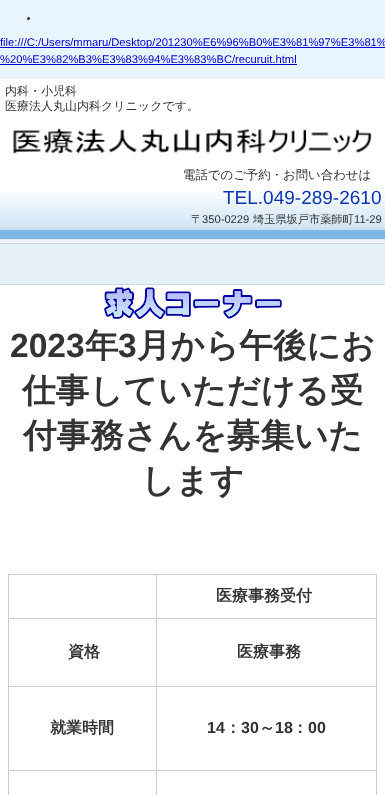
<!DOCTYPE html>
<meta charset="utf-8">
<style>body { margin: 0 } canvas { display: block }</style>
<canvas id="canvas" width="385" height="795"></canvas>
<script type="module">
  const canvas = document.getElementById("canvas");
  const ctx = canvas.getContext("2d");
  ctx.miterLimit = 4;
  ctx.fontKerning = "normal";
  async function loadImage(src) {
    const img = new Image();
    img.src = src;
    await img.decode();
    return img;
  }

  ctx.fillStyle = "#e8f4fe";
  ctx.fillRect(0, 0, 385, 795);
  ctx.fillStyle = "#333333";
  ctx.beginPath();
  ctx.arc(28.5, 18.5, 1.5, 0, Math.PI * 2);
  ctx.fill();
  ctx.fillStyle = "#0000cc";
  ctx.fillRect(0, 47, 385, 1);
  ctx.font = "11.2px Liberation Sans";
  ctx.fillText("file:///C:/Users/mmaru/Desktop/201230%E6%96%B0%E3%81%97%E3%81%", 0, 46);
  ctx.fillText("%20%E3%82%B3%E3%83%94%E3%83%BC/recuruit.html", 0, 63);
  ctx.fillRect(0, 64, 297, 1);
  ctx.fillStyle = "#ffffff";
  ctx.fillRect(0, 79, 385, 716);
  ctx.drawImage(await loadImage("img1.png"), 0, 191, 385, 51);
  ctx.font = "500 12px WenQuanYi Zen Hei";
  ctx.fillStyle = "#333333";
  ctx.fillText("内科・小児科", 5, 95);
  ctx.fillText("医療法人丸山内科クリニックです。", 5, 110);
  ctx.drawImage(await loadImage("img2.png"), 13, 128, 359, 26);
  ctx.font = "500 12.4px WenQuanYi Zen Hei";
  ctx.fillText("電話でのご予約・お問い合わせは", 183, 179);
  ctx.font = "19px Liberation Sans";
  ctx.fillStyle = "#0935b1";
  ctx.fillText("TEL.049-289-2610", 223, 204);
  ctx.font = "500 11.2px WenQuanYi Zen Hei";
  ctx.fillStyle = "#333333";
  ctx.fillText("〒", 191, 223);
  ctx.font = "11.2px Liberation Sans";
  ctx.fillText("350-0229", 202, 223);
  ctx.font = "500 11.2px WenQuanYi Zen Hei";
  ctx.fillText("埼玉県坂戸市薬師町", 253, 223);
  ctx.font = "11.2px Liberation Sans";
  ctx.fillText("11-29", 354, 223);
  ctx.fillStyle = "#e6f1fa";
  ctx.fillRect(0, 244, 385, 40);
  ctx.fillStyle = "#c3d8e9";
  ctx.fillRect(0, 243, 385, 1);
  ctx.fillRect(0, 284, 385, 1);
  ctx.drawImage(await loadImage("img3.png"), 104, 287, 178, 32);
  ctx.font = "bold 33.6px Liberation Sans";
  ctx.fillStyle = "#333333";
  ctx.fillText("2023", 10, 357);
  ctx.font = "bold 33.6px WenQuanYi Zen Hei";
  ctx.fillText("年", 85, 357);
  ctx.font = "bold 33.6px Liberation Sans";
  ctx.fillText("3", 118, 357);
  ctx.font = "bold 33.6px WenQuanYi Zen Hei";
  ctx.fillText("月から午後にお", 137, 357);
  ctx.fillText("仕事していただける受", 22, 402);
  ctx.fillText("付事務さんを募集いた", 23, 447);
  ctx.fillText("します", 141, 492);
  ctx.fillStyle = "#cccccc";
  ctx.fillRect(8, 574, 369, 1);
  ctx.fillRect(8, 574, 1, 221);
  ctx.fillRect(156, 618, 221, 1);
  ctx.fillRect(156, 686, 221, 1);
  ctx.fillRect(156, 770, 221, 1);
  ctx.fillRect(156, 770, 1, 25);
  ctx.fillRect(8, 770, 149, 1);
  ctx.fillRect(156, 686, 1, 85);
  ctx.fillRect(8, 686, 149, 1);
  ctx.fillRect(156, 618, 1, 69);
  ctx.fillRect(8, 618, 149, 1);
  ctx.fillRect(156, 574, 1, 45);
  ctx.font = "bold 16px WenQuanYi Zen Hei";
  ctx.fillStyle = "#333333";
  ctx.fillText("医療事務受付", 216, 601);
  ctx.fillText("資格", 68, 657);
  ctx.fillStyle = "#cccccc";
  ctx.fillRect(376, 770, 1, 25);
  ctx.fillRect(376, 686, 1, 85);
  ctx.fillRect(376, 574, 1, 113);
  ctx.fillStyle = "#333333";
  ctx.fillText("医療事務", 237, 657);
  ctx.fillText("就業時間", 50, 733);
  ctx.font = "bold 16px Liberation Sans";
  ctx.fillText("14", 207, 733);
  ctx.font = "bold 16px WenQuanYi Zen Hei";
  ctx.fillText("：", 225, 733);
  ctx.font = "bold 16px Liberation Sans";
  ctx.fillText("30", 241, 733);
  ctx.font = "bold 16px WenQuanYi Zen Hei";
  ctx.fillText("～", 259, 733);
  ctx.font = "bold 16px Liberation Sans";
  ctx.fillText("18", 275, 733);
  ctx.font = "bold 16px WenQuanYi Zen Hei";
  ctx.fillText("：", 292, 733);
  ctx.font = "bold 16px Liberation Sans";
  ctx.fillText("00", 308, 733);
</script>
